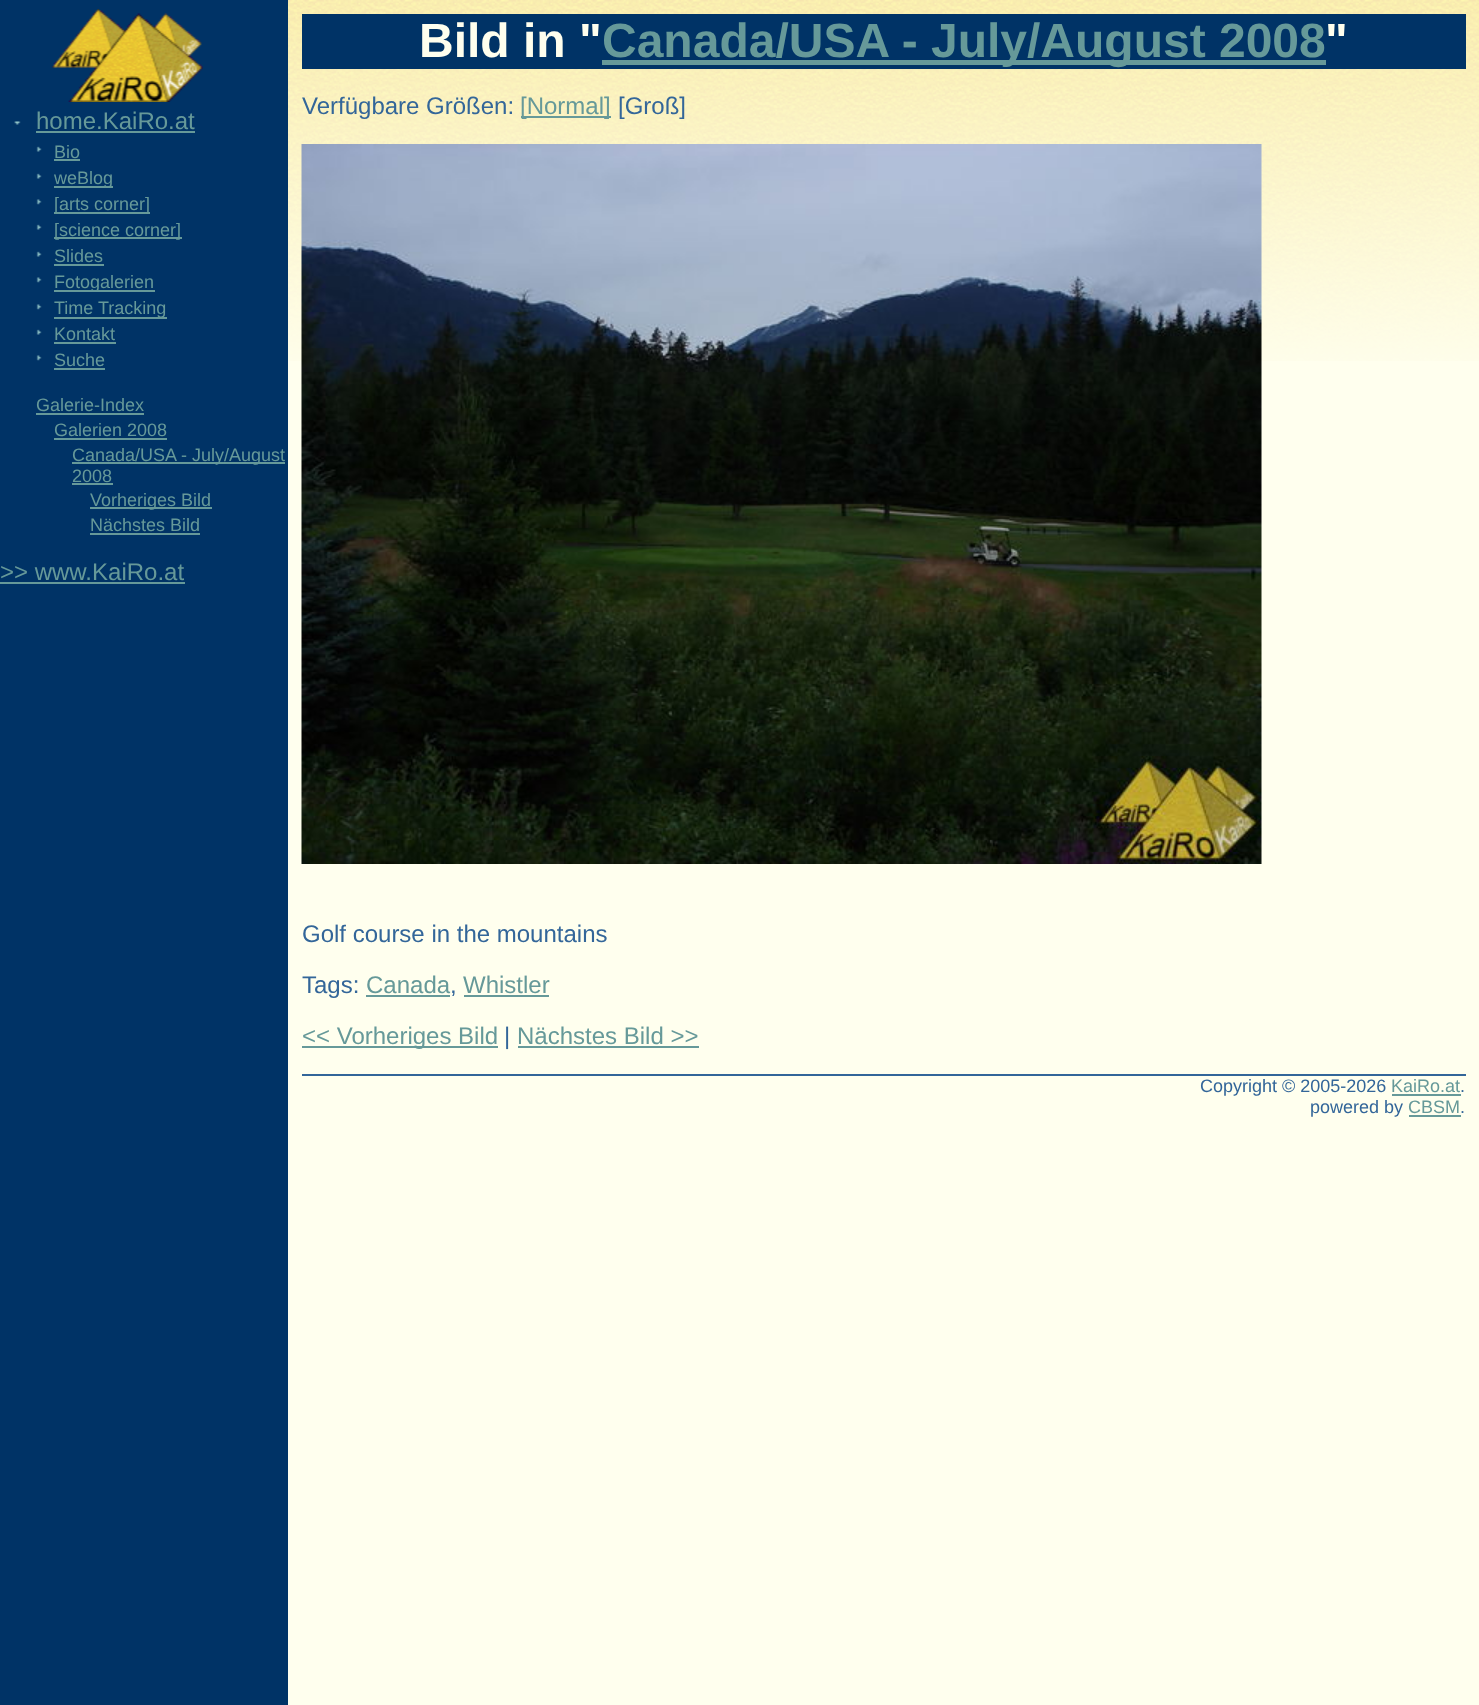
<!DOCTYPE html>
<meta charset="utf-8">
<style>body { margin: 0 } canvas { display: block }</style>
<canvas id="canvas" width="1479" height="1705"></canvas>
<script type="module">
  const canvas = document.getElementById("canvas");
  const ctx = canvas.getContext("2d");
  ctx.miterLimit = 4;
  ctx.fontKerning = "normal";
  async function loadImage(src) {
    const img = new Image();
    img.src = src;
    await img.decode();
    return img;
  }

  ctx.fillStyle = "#ffffee";
  ctx.fillRect(0, 0, 1479, 1705);
  ctx.drawImage(await loadImage("img1.png"), 288, 0, 1191, 361);
  ctx.fillStyle = "#003366";
  ctx.fillRect(0, 0, 288, 1705);
  ctx.drawImage(await loadImage("img2.png"), 52, 9, 151, 93);
  ctx.drawImage(await loadImage("img3.png"), 14, 121, 7, 4);
  ctx.font = "24px Liberation Sans";
  ctx.fillStyle = "#669999";
  ctx.fillText("home.KaiRo.at", 36, 129);
  ctx.fillRect(36, 131, 159, 2);
  ctx.drawImage(await loadImage("img4.png"), 36, 146, 6, 6);
  ctx.font = "18px Liberation Sans";
  ctx.fillText("Bio", 54, 158);
  ctx.fillRect(54, 159, 26, 2);
  ctx.drawImage(await loadImage("img4.png"), 36, 173, 6, 6);
  ctx.fillRect(54, 186, 59, 2);
  ctx.fillText("weBlog", 54, 184);
  ctx.drawImage(await loadImage("img5.png"), 36, 199, 6, 6);
  ctx.fillRect(54, 212, 96, 2);
  ctx.fillText("[arts corner]", 54, 210);
  ctx.drawImage(await loadImage("img4.png"), 36, 224, 6, 6);
  ctx.fillRect(54, 237, 128, 2);
  ctx.fillText("[science corner]", 54, 236);
  ctx.drawImage(await loadImage("img4.png"), 36, 251, 6, 6);
  ctx.fillText("Slides", 54, 262);
  ctx.fillRect(54, 264, 50, 2);
  ctx.drawImage(await loadImage("img5.png"), 36, 277, 6, 6);
  ctx.fillRect(54, 290, 101, 2);
  ctx.fillText("Fotogalerien", 54, 288);
  ctx.drawImage(await loadImage("img5.png"), 36, 304, 6, 6);
  ctx.fillRect(54, 317, 113, 2);
  ctx.fillText("Time Tracking", 54, 314);
  ctx.drawImage(await loadImage("img4.png"), 36, 329, 6, 6);
  ctx.fillText("Kontakt", 54, 340);
  ctx.fillRect(54, 342, 62, 2);
  ctx.drawImage(await loadImage("img5.png"), 36, 355, 6, 6);
  ctx.fillText("Suche", 54, 366);
  ctx.fillRect(54, 368, 51, 2);
  ctx.fillText("Galerie-Index", 36, 411);
  ctx.fillRect(36, 413, 108, 2);
  ctx.fillText("Galerien 2008", 54, 436);
  ctx.fillRect(54, 438, 113, 2);
  ctx.fillRect(72, 462, 213, 2);
  ctx.fillText("Canada/USA - July/August", 72, 461);
  ctx.fillText("2008", 72, 482);
  ctx.fillRect(72, 483, 41, 2);
  ctx.fillRect(90, 507, 122, 2);
  ctx.fillText("Vorheriges Bild", 90, 506);
  ctx.fillText("Nächstes Bild", 90, 531);
  ctx.fillRect(90, 533, 110, 2);
  ctx.font = "24px Liberation Sans";
  ctx.fillText(">> www.KaiRo.at", 0, 580);
  ctx.fillRect(0, 582, 185, 2);
  ctx.fillStyle = "#003366";
  ctx.fillRect(302, 14, 1164, 55);
  ctx.font = "bold 48px Liberation Sans";
  ctx.fillStyle = "#ffffee";
  ctx.fillText("Bild in \"", 419, 57);
  ctx.fillStyle = "#669999";
  ctx.fillRect(602, 60, 724, 5);
  ctx.fillText("Canada/USA - July/August 2008", 602, 57);
  ctx.fillStyle = "#ffffee";
  ctx.fillText("\"", 1325, 57);
  ctx.font = "24px Liberation Sans";
  ctx.fillStyle = "#336699";
  ctx.fillText("Verfügbare Größen:", 302, 114);
  ctx.fillStyle = "#669999";
  ctx.fillRect(521, 116, 90, 2);
  ctx.fillText("[Normal]", 520, 114);
  ctx.fillStyle = "#336699";
  ctx.fillText("[Groß]", 618, 114);
  ctx.drawImage(await loadImage("img6.png"), 301, 144, 961, 720);
  ctx.fillText("Golf course in the mountains", 302, 942);
  ctx.fillText("Tags:", 302, 993);
  ctx.fillStyle = "#669999";
  ctx.fillText("Canada", 366, 993);
  ctx.fillStyle = "#336699";
  ctx.fillText(",", 450, 993);
  ctx.fillStyle = "#669999";
  ctx.fillRect(366, 995, 84, 2);
  ctx.fillRect(464, 995, 85, 2);
  ctx.fillText("Whistler", 463, 993);
  ctx.fillRect(302, 1046, 196, 2);
  ctx.fillText("<< Vorheriges Bild", 302, 1044);
  ctx.fillStyle = "#336699";
  ctx.fillText("|", 504, 1044);
  ctx.fillStyle = "#669999";
  ctx.fillText("Nächstes Bild >>", 517, 1044);
  ctx.fillRect(518, 1046, 181, 2);
  ctx.fillStyle = "#336699";
  ctx.fillRect(302, 1074, 1164, 2);
  ctx.font = "18px Liberation Sans";
  ctx.fillText("Copyright © 2005-2026", 1200, 1092);
  ctx.fillStyle = "#669999";
  ctx.fillText("KaiRo.at", 1391, 1092);
  ctx.fillRect(1392, 1094, 69, 2);
  ctx.fillStyle = "#336699";
  ctx.fillText(".", 1460, 1092);
  ctx.fillText("powered by", 1310, 1113);
  ctx.fillStyle = "#669999";
  ctx.fillText("CBSM", 1408, 1113);
  ctx.fillRect(1409, 1115, 52, 2);
  ctx.fillStyle = "#336699";
  ctx.fillText(".", 1460, 1113);
</script>
